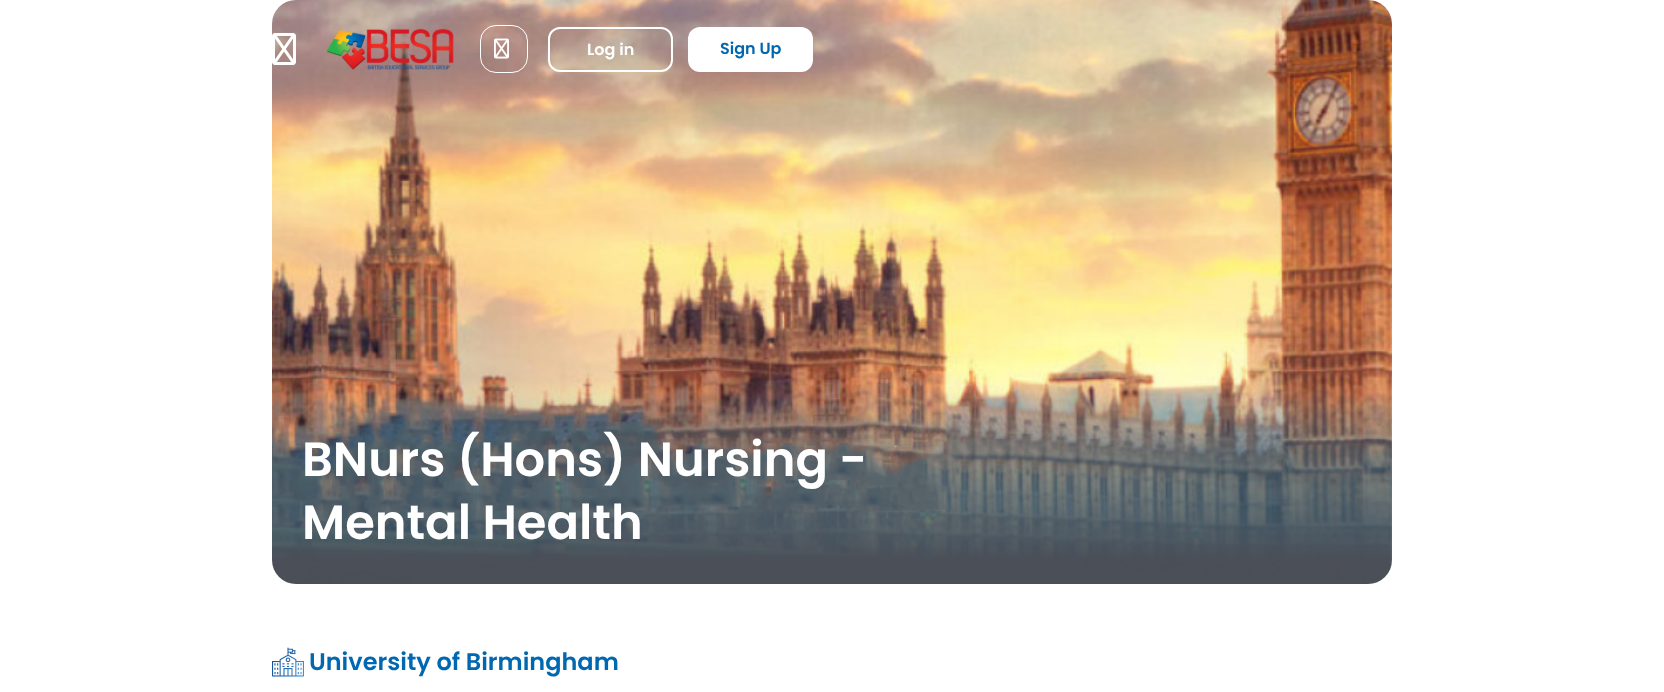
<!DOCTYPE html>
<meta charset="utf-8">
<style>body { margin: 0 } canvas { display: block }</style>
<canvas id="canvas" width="1664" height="692"></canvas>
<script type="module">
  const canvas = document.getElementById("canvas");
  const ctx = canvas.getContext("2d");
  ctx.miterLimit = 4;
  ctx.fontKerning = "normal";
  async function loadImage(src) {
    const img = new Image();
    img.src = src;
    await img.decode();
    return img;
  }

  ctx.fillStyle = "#ffffff";
  ctx.fillRect(0, 0, 1664, 692);
  ctx.drawImage(await loadImage("img4.png"), 272, 0, 1120, 584);
  ctx.drawImage(await loadImage("img1.png"), 272, 33, 24, 32);
  ctx.drawImage(await loadImage("img2.png"), 326, 28, 128, 42);
  ctx.beginPath();
  ctx.roundRect(480.5, 25.5, 47, 47, 15.5);
  ctx.strokeStyle = "#ffffff";
  ctx.stroke();
  ctx.drawImage(await loadImage("img3.png"), 494, 38, 15, 21);
  ctx.beginPath();
  ctx.roundRect(549, 28, 123, 43, 11);
  ctx.lineWidth = 2;
  ctx.stroke();
  ctx.font = "600 16px Poppins";
  ctx.fillText("Log in", 587, 55);
  ctx.beginPath();
  ctx.roundRect(688, 27, 125, 45, 12);
  ctx.fill();
  ctx.fillStyle = "#0067b1";
  ctx.fillText("Sign Up", 720, 54);
  ctx.font = "600 48px Poppins";
  ctx.fillStyle = "#ffffff";
  ctx.fillText("BNurs (Hons) Nursing -", 302, 476);
  ctx.fillText("Mental Health", 302, 539);
  ctx.drawImage(await loadImage("img5.png"), 272, 647, 32, 30);
  ctx.font = "600 24px Poppins";
  ctx.fillStyle = "#0067b1";
  ctx.fillText("University of Birmingham", 309, 670);
</script>
